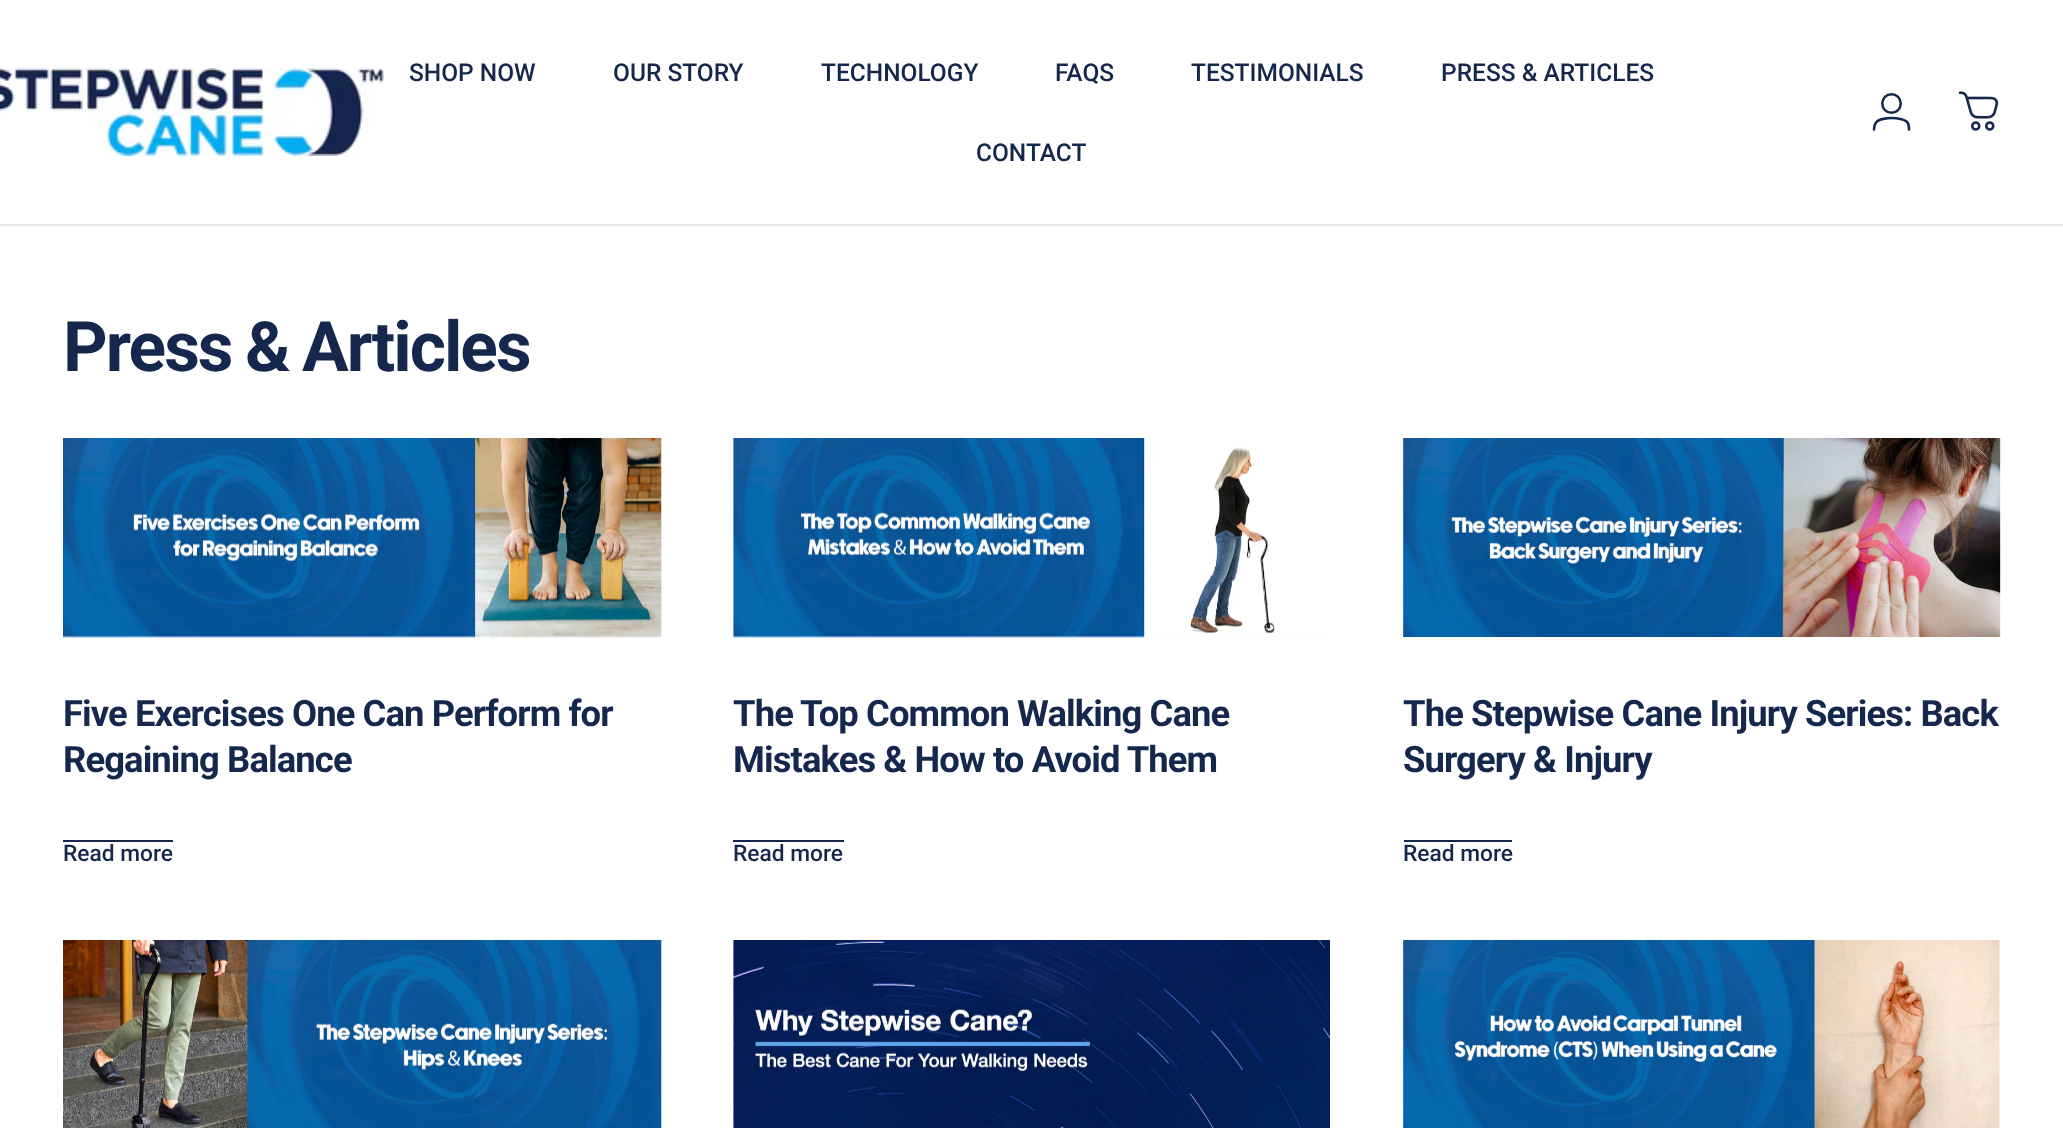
<!DOCTYPE html>
<meta charset="utf-8">
<style>body { margin: 0 } canvas { display: block }</style>
<canvas id="canvas" width="2063" height="1128"></canvas>
<script type="module">
  const canvas = document.getElementById("canvas");
  const ctx = canvas.getContext("2d");
  ctx.miterLimit = 4;
  ctx.fontKerning = "normal";
  async function loadImage(src) {
    const img = new Image();
    img.src = src;
    await img.decode();
    return img;
  }

  ctx.fillStyle = "#ffffff";
  ctx.fillRect(0, 0, 2063, 1128);
  ctx.drawImage(await loadImage("img1.png"), 0, 68, 384, 88);
  ctx.font = "500 24.5px Roboto";
  ctx.fillStyle = "#16274d";
  ctx.fillText("SHOP NOW", 409, 81);
  ctx.fillText("OUR STORY", 613, 81);
  ctx.fillText("TECHNOLOGY", 821, 81);
  ctx.fillText("FAQS", 1055, 81);
  ctx.fillText("TESTIMONIALS", 1191, 81);
  ctx.fillText("PRESS & ARTICLES", 1441, 81);
  ctx.fillText("CONTACT", 976, 161);
  ctx.beginPath();
  ctx.arc(1891.5, 103.5, 9.25, 0, Math.PI * 2);
  ctx.strokeStyle = "#16274d";
  ctx.lineWidth = 2.5;
  ctx.stroke();
  ctx.beginPath();
  ctx.moveTo(1892, 118);
  ctx.bezierCurveTo(1896, 118, 1905, 119, 1907.5, 122.5);
  ctx.bezierCurveTo(1909, 124.5, 1909, 127, 1909, 129.5);
  ctx.moveTo(1892, 118);
  ctx.bezierCurveTo(1887.5, 118, 1878.5, 119, 1876, 122.5);
  ctx.bezierCurveTo(1874.5, 124.5, 1874, 127, 1874, 129.5);
  ctx.lineWidth = 2.6;
  ctx.lineCap = "round";
  ctx.stroke();
  ctx.drawImage(await loadImage("img2.png"), 1958, 91, 41, 40);
  ctx.fillStyle = "#e8e9ed";
  ctx.fillRect(0, 224, 2063, 2);
  ctx.letterSpacing = "-2px";
  ctx.font = "bold 69.5px Roboto";
  ctx.fillStyle = "#16274d";
  ctx.fillText("Press", 63, 371);
  ctx.fillText("&", 245, 371);
  ctx.fillText("Articles", 302, 371);
  ctx.fillStyle = "#fafafa";
  ctx.fillRect(63, 438, 599, 199);
  ctx.drawImage(await loadImage("img3.png"), 63, 438, 599, 200);
  ctx.letterSpacing = "-0.9px";
  ctx.font = "bold 36.4px Roboto";
  ctx.fillStyle = "#16274d";
  ctx.fillText("Five Exercises One Can Perform for", 63, 726);
  ctx.fillText("Regaining Balance", 63, 772);
  ctx.letterSpacing = "0px";
  ctx.font = "500 22.75px Roboto";
  ctx.fillText("Read more", 63, 861);
  ctx.fillRect(63, 840, 110, 2);
  ctx.fillStyle = "#fafafa";
  ctx.fillRect(733, 438, 597, 199);
  ctx.drawImage(await loadImage("img4.png"), 733, 438, 597, 200);
  ctx.letterSpacing = "-0.9px";
  ctx.font = "bold 36.4px Roboto";
  ctx.fillStyle = "#16274d";
  ctx.fillText("The Top Common Walking Cane", 733, 726);
  ctx.fillText("Mistakes & How to Avoid Them", 733, 772);
  ctx.letterSpacing = "0px";
  ctx.font = "500 22.75px Roboto";
  ctx.fillText("Read more", 733, 861);
  ctx.fillRect(733, 840, 111, 2);
  ctx.drawImage(await loadImage("img5.png"), 1403, 438, 598, 199);
  ctx.letterSpacing = "-0.9px";
  ctx.font = "bold 36.4px Roboto";
  ctx.fillText("The Stepwise Cane Injury Series: Back", 1403, 726);
  ctx.fillText("Surgery & Injury", 1403, 772);
  ctx.letterSpacing = "0px";
  ctx.font = "500 22.75px Roboto";
  ctx.fillText("Read more", 1403, 861);
  ctx.fillRect(1404, 840, 108, 2);
  ctx.fillStyle = "#fafafa";
  ctx.fillRect(661, 940, 1, 188);
  ctx.drawImage(await loadImage("img6.png"), 63, 940, 599, 188);
  ctx.fillRect(733, 940, 1, 188);
  ctx.drawImage(await loadImage("img7.png"), 733, 940, 597, 188);
  ctx.drawImage(await loadImage("img8.png"), 1403, 940, 597, 188);
</script>
